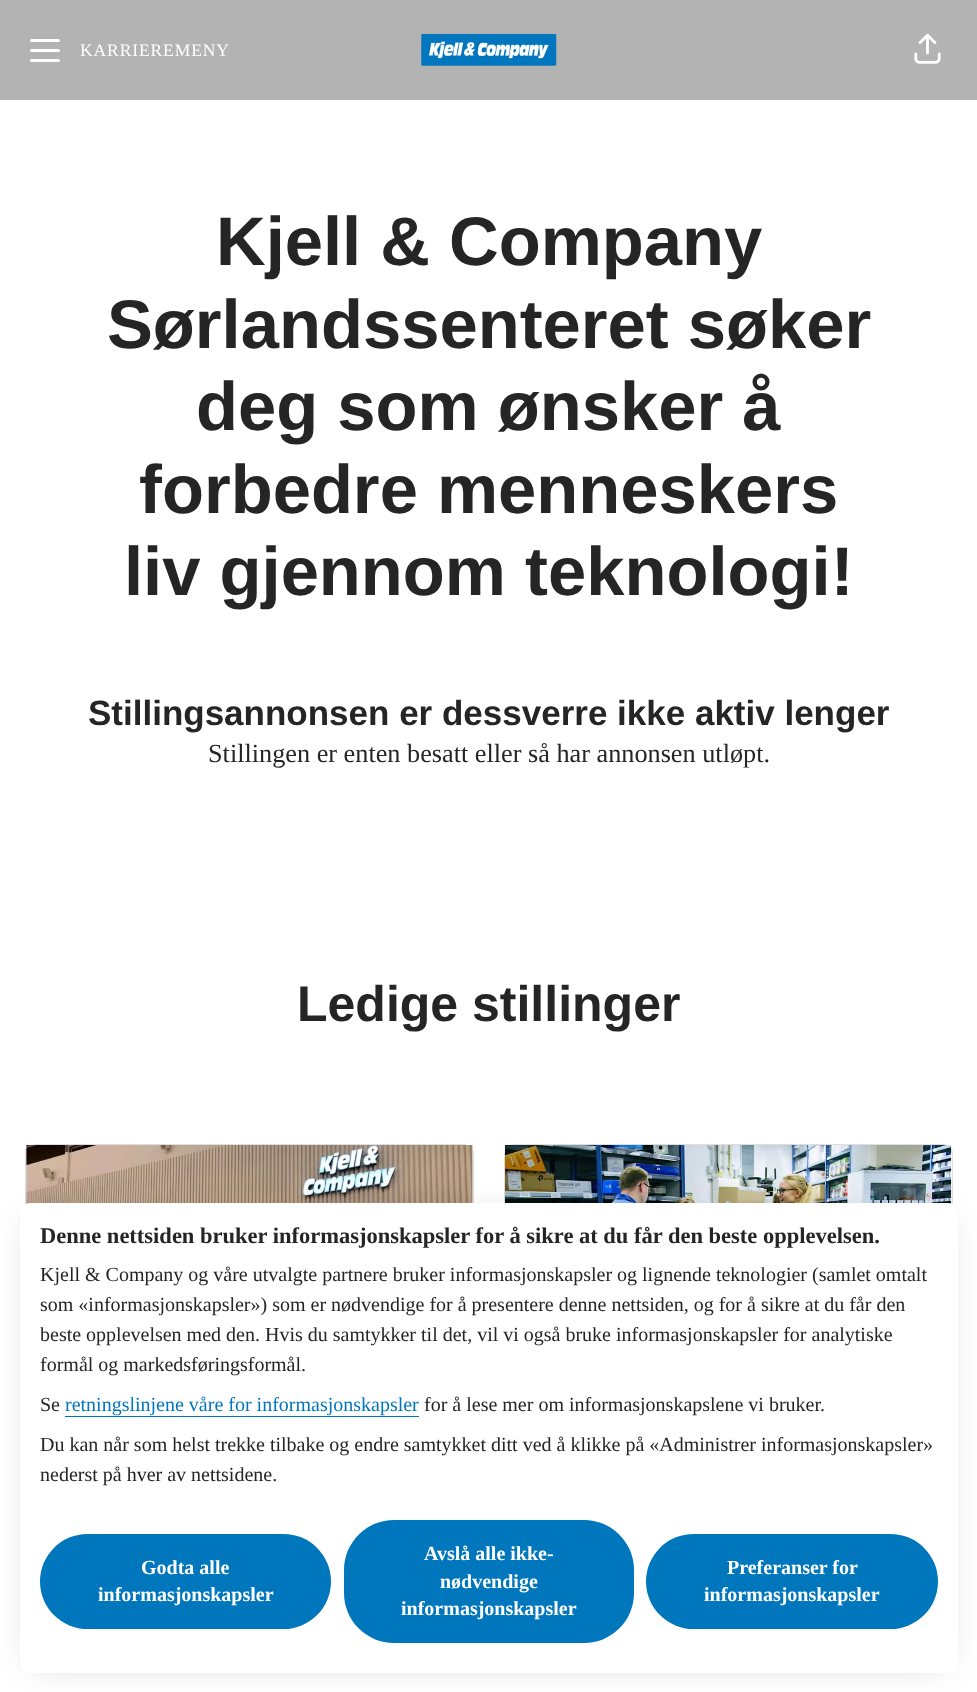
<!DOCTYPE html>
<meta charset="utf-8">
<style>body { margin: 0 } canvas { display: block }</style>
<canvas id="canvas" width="977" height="1692"></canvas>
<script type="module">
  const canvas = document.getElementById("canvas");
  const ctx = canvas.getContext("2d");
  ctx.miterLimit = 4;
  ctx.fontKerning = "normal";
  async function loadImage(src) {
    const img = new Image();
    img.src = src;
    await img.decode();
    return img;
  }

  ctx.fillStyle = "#ffffff";
  ctx.fillRect(0, 0, 977, 1692);
  ctx.fillStyle = "#b3b3b3";
  ctx.fillRect(0, 0, 977, 100);
  ctx.fillStyle = "#ffffff";
  ctx.beginPath();
  ctx.roundRect(30, 39, 30, 3, 1.5);
  ctx.fill();
  ctx.beginPath();
  ctx.roundRect(30, 49, 30, 3, 1.5);
  ctx.fill();
  ctx.beginPath();
  ctx.roundRect(30, 59, 30, 3, 1.5);
  ctx.fill();
  ctx.letterSpacing = "0.9px";
  ctx.font = "17.5px Liberation Serif";
  ctx.fillText("KARRIEREMENY", 80, 56);
  ctx.drawImage(await loadImage("img1.png"), 421, 33, 136, 33);
  ctx.drawImage(await loadImage("img2.png"), 914, 33, 27, 31);
  ctx.letterSpacing = "0px";
  ctx.font = "bold 68.75px Liberation Sans";
  ctx.fillStyle = "#252525";
  ctx.fillText("Kjell & Company", 216, 265);
  ctx.fillText("Sørlandssenteret søker", 107, 348);
  ctx.fillText("deg som ønsker å", 196, 430);
  ctx.fillText("forbedre menneskers", 139, 513);
  ctx.fillText("liv gjennom teknologi!", 124, 595);
  ctx.font = "bold 35px Liberation Sans";
  ctx.fillText("Stillingsannonsen er dessverre ikke aktiv lenger", 88, 725);
  ctx.font = "26.25px Liberation Serif";
  ctx.fillText("Stillingen er enten besatt eller så har annonsen utløpt.", 208, 762);
  ctx.font = "bold 50px Liberation Sans";
  ctx.fillText("Ledige stillinger", 297, 1021);
  ctx.beginPath();
  ctx.roundRect(25.5, 1144.5, 448, 524, 9.5);
  ctx.strokeStyle = "#dedede";
  ctx.stroke();
  ctx.fillStyle = "rgba(37, 37, 37, 0.15)";
  ctx.fillRect(26, 1145, 447, 59);
  ctx.drawImage(await loadImage("img3.png"), 26, 1145, 447, 59);
  ctx.beginPath();
  ctx.roundRect(504.5, 1144.5, 448, 524, 9.5);
  ctx.stroke();
  ctx.drawImage(await loadImage("img4.png"), 505, 1145, 447, 59);
  ctx.fillStyle = "rgba(0, 0, 0, 0.18)";
  ctx.filter = "blur(17px)";
  ctx.beginPath();
  ctx.rect(33, 1218, 912, 445);
  ctx.fill();
  ctx.filter = "none";
  ctx.fillStyle = "#ffffff";
  ctx.beginPath();
  ctx.roundRect(20, 1203, 938, 470, 10);
  ctx.fill();
  ctx.font = "bold 22.5px Liberation Serif";
  ctx.fillStyle = "#252525";
  ctx.fillText("Denne nettsiden bruker informasjonskapsler for å sikre at du får den beste opplevelsen.", 40, 1243);
  ctx.font = "20px Liberation Serif";
  ctx.fillText("Kjell & Company og våre utvalgte partnere bruker informasjonskapsler og lignende teknologier (samlet omtalt", 40, 1281);
  ctx.fillText("som «informasjonskapsler») som er nødvendige for å presentere denne nettsiden, og for å sikre at du får den", 40, 1311);
  ctx.fillText("beste opplevelsen med den. Hvis du samtykker til det, vil vi også bruke informasjonskapsler for analytiske", 40, 1341);
  ctx.fillText("formål og markedsføringsformål.", 40, 1371);
  ctx.fillText("Se", 40, 1411);
  ctx.fillStyle = "#0076bd";
  ctx.fillText("retningslinjene våre for informasjonskapsler", 65, 1411);
  ctx.fillRect(65, 1416, 354, 1);
  ctx.fillStyle = "#252525";
  ctx.fillText("for å lese mer om informasjonskapslene vi bruker.", 424, 1411);
  ctx.fillText("Du kan når som helst trekke tilbake og endre samtykket ditt ved å klikke på «Administrer informasjonskapsler»", 40, 1451);
  ctx.fillText("nederst på hver av nettsidene.", 40, 1481);
  ctx.fillStyle = "#0076bd";
  ctx.beginPath();
  ctx.roundRect(40, 1534, 291, 95, 47.5);
  ctx.fill();
  ctx.font = "bold 20px Liberation Serif";
  ctx.fillStyle = "#ffffff";
  ctx.fillText("Godta alle", 141, 1574);
  ctx.fillText("informasjonskapsler", 98, 1601);
  ctx.fillStyle = "#0076bd";
  ctx.beginPath();
  ctx.roundRect(344, 1520, 290, 123, 50);
  ctx.fill();
  ctx.fillStyle = "#ffffff";
  ctx.fillText("Avslå alle ikke-", 424, 1560);
  ctx.fillText("nødvendige", 440, 1588);
  ctx.fillText("informasjonskapsler", 401, 1615);
  ctx.fillStyle = "#0076bd";
  ctx.beginPath();
  ctx.roundRect(646, 1534, 292, 95, 47.5);
  ctx.fill();
  ctx.fillStyle = "#ffffff";
  ctx.fillText("Preferanser for", 727, 1574);
  ctx.fillText("informasjonskapsler", 704, 1601);
</script>
